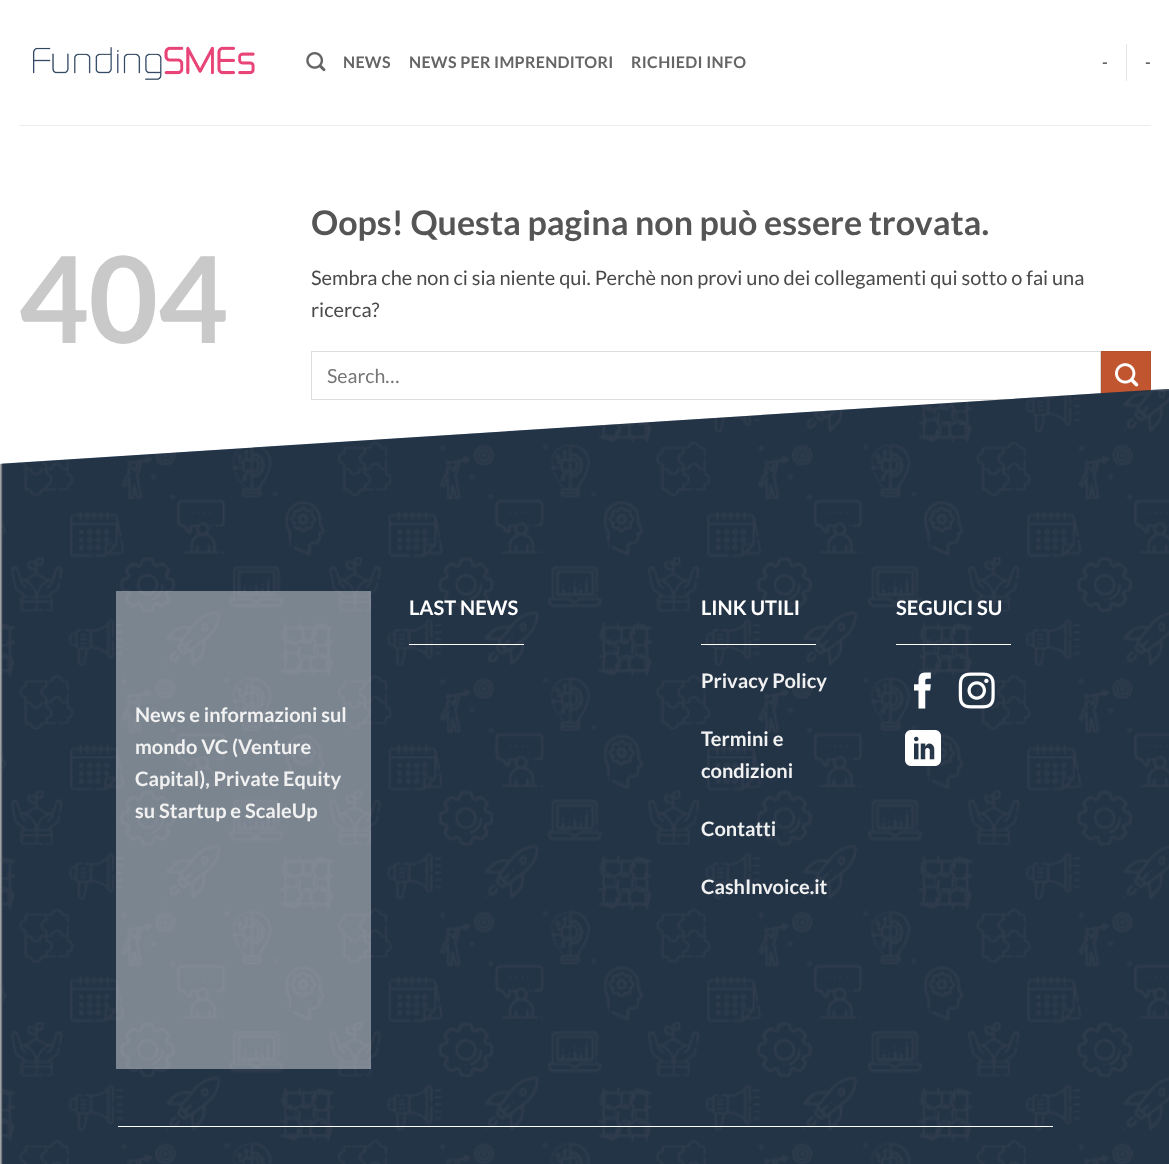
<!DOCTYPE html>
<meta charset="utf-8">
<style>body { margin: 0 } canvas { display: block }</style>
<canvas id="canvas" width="1169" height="1164"></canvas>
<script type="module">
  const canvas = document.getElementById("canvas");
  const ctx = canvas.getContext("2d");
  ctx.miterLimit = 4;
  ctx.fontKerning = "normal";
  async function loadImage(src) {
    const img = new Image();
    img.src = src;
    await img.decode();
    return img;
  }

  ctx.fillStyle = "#ffffff";
  ctx.fillRect(0, 0, 1169, 1164);
  ctx.drawImage(await loadImage("img1.png"), 33, 46, 222, 34);
  ctx.drawImage(await loadImage("img2.png"), 306, 52, 20, 20);
  ctx.letterSpacing = "0.3px";
  ctx.font = "bold 16px Lato";
  ctx.fillStyle = "#656565";
  ctx.fillText("NEWS", 343, 68);
  ctx.fillText("NEWS PER IMPRENDITORI", 409, 68);
  ctx.fillText("RICHIEDI INFO", 631, 68);
  ctx.fillText("-", 1102, 68);
  ctx.fillStyle = "#e6e6e6";
  ctx.fillRect(1126, 44, 1, 37);
  ctx.fillStyle = "#656565";
  ctx.fillText("-", 1145, 68);
  ctx.fillStyle = "#ededed";
  ctx.fillRect(19, 125, 1132, 1);
  ctx.letterSpacing = "0px";
  ctx.font = "bold 120px Lato";
  ctx.fillStyle = "#c9c9c9";
  ctx.fillText("404", 19, 343);
  ctx.font = "bold 34px Lato";
  ctx.fillStyle = "#555555";
  ctx.fillText("Oops! Questa pagina non può essere trovata.", 311, 235);
  ctx.font = "20px Lato";
  ctx.fillStyle = "#4a4a4a";
  ctx.fillText("Sembra che non ci sia niente qui. Perchè non provi uno dei collegamenti qui sotto o fai una", 311, 285);
  ctx.fillText("ricerca?", 311, 317);
  ctx.strokeStyle = "#dddddd";
  ctx.strokeRect(311.5, 351.5, 789, 48);
  ctx.font = "19.5px Lato";
  ctx.fillStyle = "#757575";
  ctx.fillText("Search…", 327, 383);
  ctx.fillStyle = "#c05530";
  ctx.fillRect(1102, 352, 48, 42);
  ctx.strokeStyle = "#b6512e";
  ctx.strokeRect(1101.5, 351.5, 49, 48);
  ctx.drawImage(await loadImage("img3.png"), 1115, 363, 24, 24);
  ctx.drawImage(await loadImage("img4.png"), 0, 389, 1169, 775);
  ctx.fillStyle = "rgba(0, 0, 0, 0.28)";
  ctx.beginPath();
  ctx.moveTo(0, 464);
  ctx.lineTo(0, 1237);
  ctx.lineTo(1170, 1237);
  ctx.lineTo(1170, 389);
  ctx.lineTo(1166, 389);
  ctx.closePath();
  ctx.fill();
  ctx.font = "bold 20px Lato";
  ctx.fillStyle = "#ffffff";
  ctx.fillText("LAST NEWS", 409, 615);
  ctx.fillRect(409, 644, 115, 1);
  ctx.fillText("LINK UTILI", 701, 615);
  ctx.fillRect(701, 644, 115, 1);
  ctx.fillStyle = "#f1f1f1";
  ctx.fillText("Privacy Policy", 701, 688);
  ctx.fillText("Termini e", 701, 746);
  ctx.fillText("condizioni", 701, 778);
  ctx.fillText("Contatti", 701, 836);
  ctx.fillText("CashInvoice.it", 701, 894);
  ctx.fillStyle = "#ffffff";
  ctx.fillText("SEGUICI SU", 896, 615);
  ctx.fillRect(896, 644, 115, 1);
  ctx.drawImage(await loadImage("img5.png"), 914, 672, 17, 37);
  ctx.drawImage(await loadImage("img6.png"), 958, 672, 37, 37);
  ctx.drawImage(await loadImage("img7.png"), 905, 730, 36, 36);
  ctx.fillStyle = "rgba(255, 255, 255, 0.4)";
  ctx.fillRect(116, 591, 255, 478);
  ctx.fillStyle = "#f1f1f1";
  ctx.fillText("News e informazioni sul", 135, 722);
  ctx.fillText("mondo VC (Venture", 135, 754);
  ctx.fillText("Capital), Private Equity", 135, 786);
  ctx.fillText("su Startup e ScaleUp", 135, 818);
  ctx.fillStyle = "#ffffff";
  ctx.fillRect(118, 1126, 935, 1);
</script>
